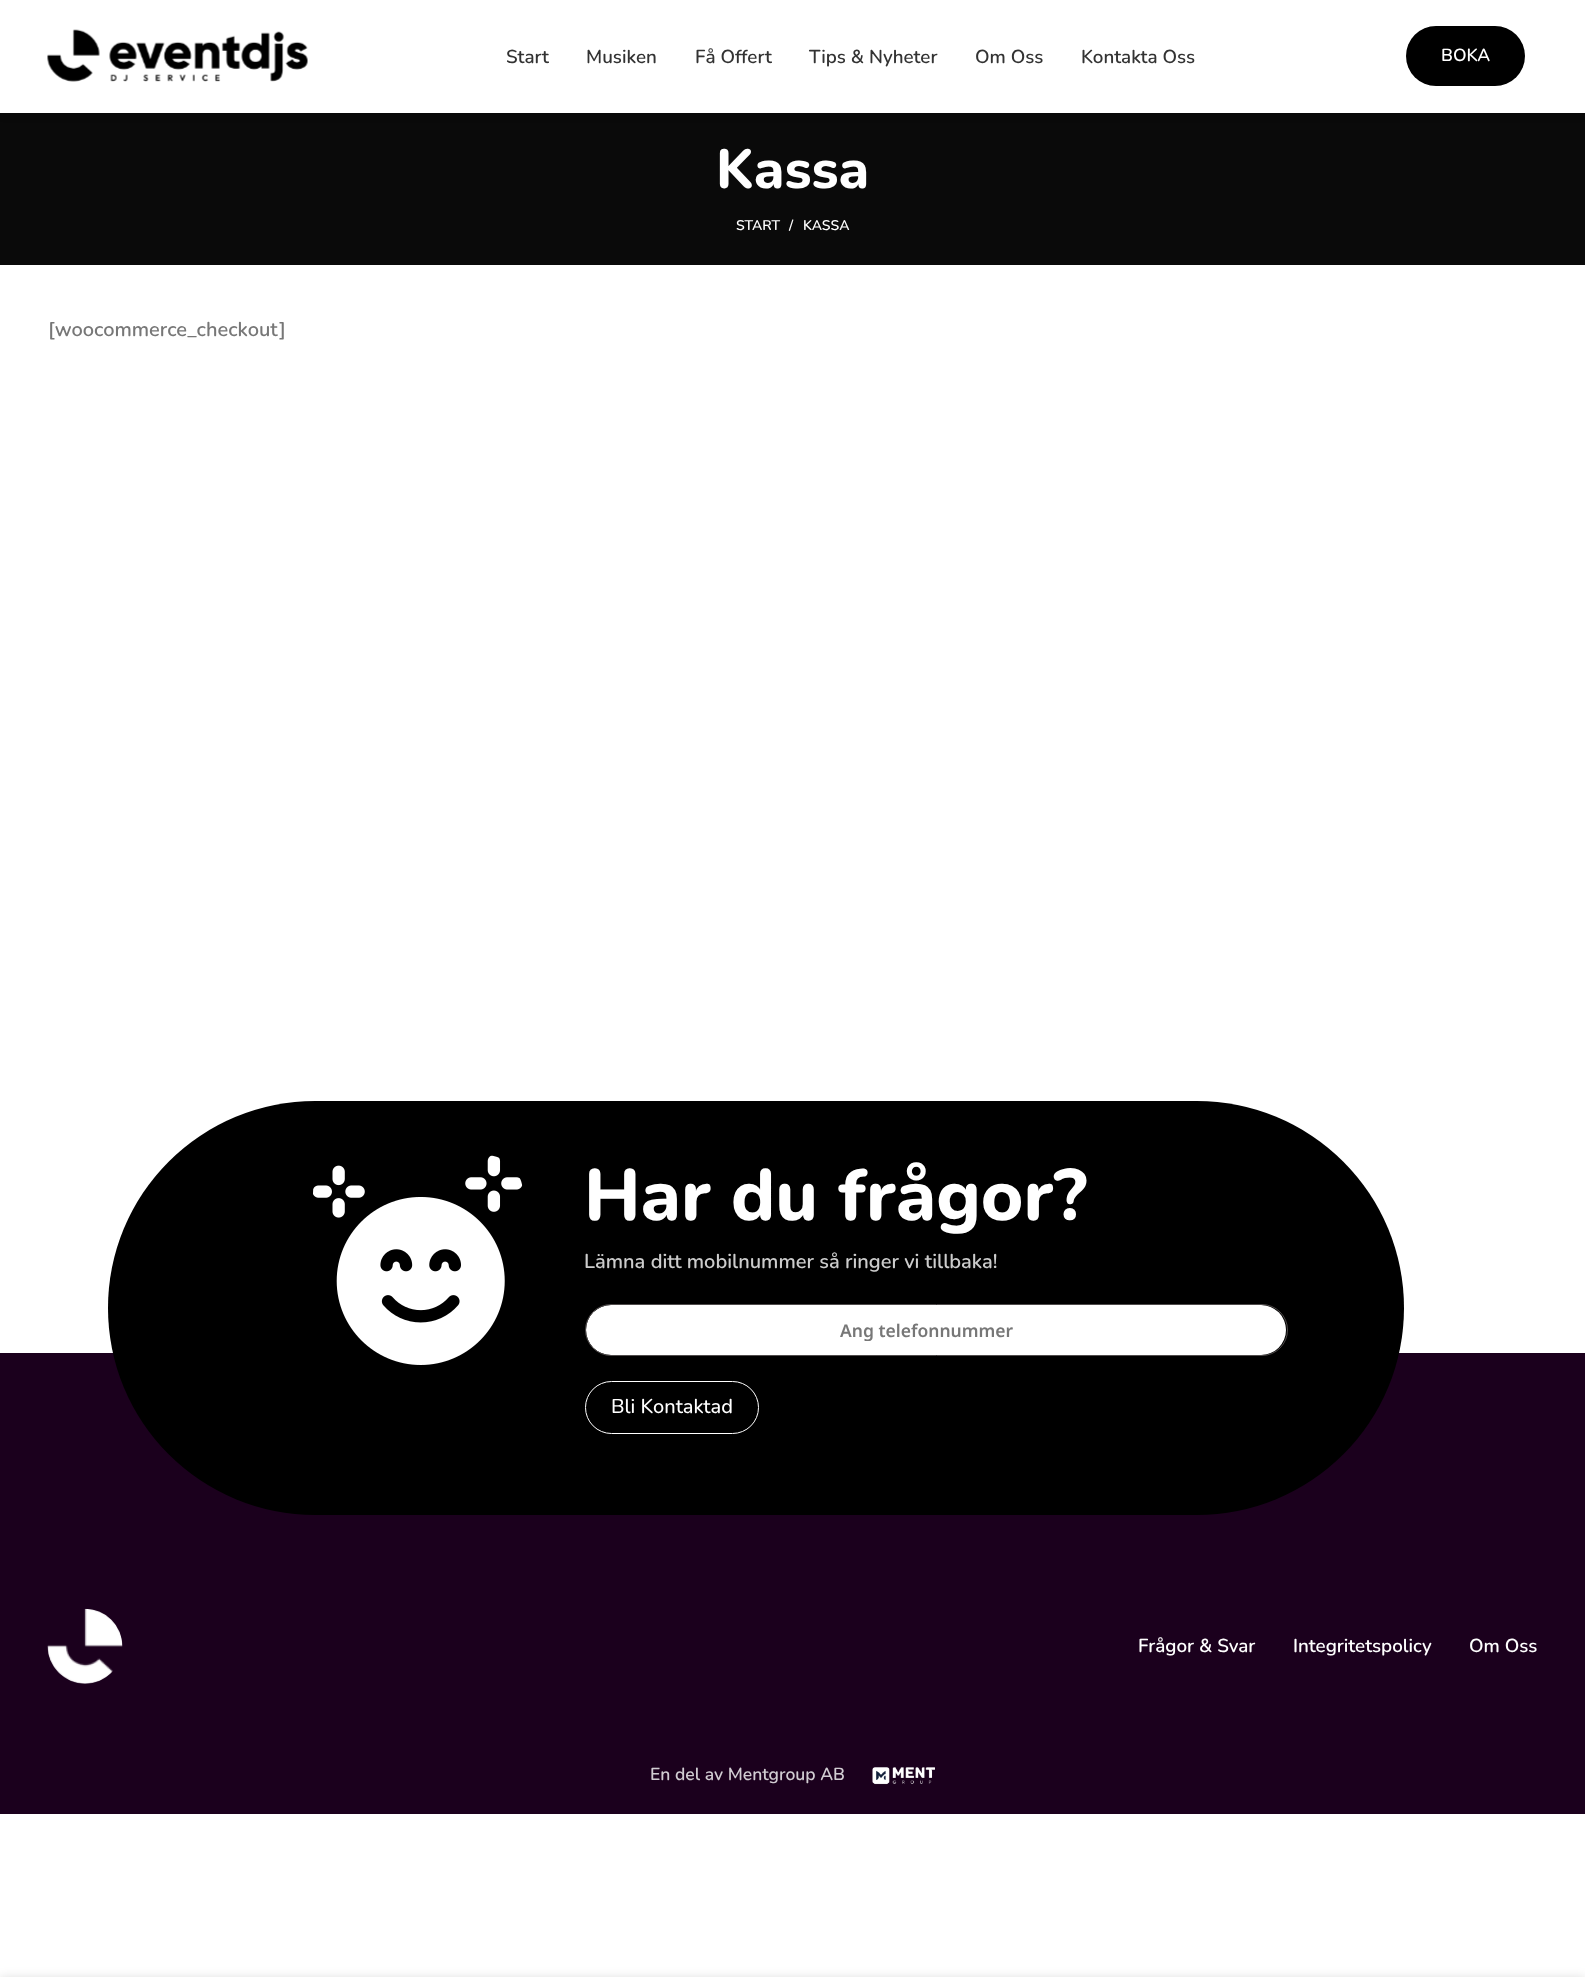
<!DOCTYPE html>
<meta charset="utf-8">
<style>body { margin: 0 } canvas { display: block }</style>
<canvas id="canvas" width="1585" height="1977"></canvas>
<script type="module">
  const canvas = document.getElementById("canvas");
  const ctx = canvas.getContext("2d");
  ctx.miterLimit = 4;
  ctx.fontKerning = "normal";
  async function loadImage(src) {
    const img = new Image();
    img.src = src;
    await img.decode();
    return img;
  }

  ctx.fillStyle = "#ffffff";
  ctx.fillRect(0, 0, 1585, 1977);
  ctx.fillStyle = "#0a0a0a";
  ctx.fillRect(0, 113, 1585, 152);
  ctx.fillStyle = "rgba(0, 0, 0, 0.1)";
  ctx.filter = "blur(5px)";
  ctx.beginPath();
  ctx.rect(0, 1, 1585, 113);
  ctx.fill();
  ctx.filter = "none";
  ctx.fillStyle = "#ffffff";
  ctx.fillRect(0, 0, 1585, 113);
  ctx.drawImage(await loadImage("img1.png"), 47, 29, 261, 53);
  ctx.font = "600 18.75px Nunito";
  ctx.fillStyle = "#333333";
  ctx.fillText("Start", 506, 63);
  ctx.fillText("Musiken", 586, 63);
  ctx.fillText("Få Offert", 695, 63);
  ctx.fillText("Tips & Nyheter", 809, 63);
  ctx.fillText("Om Oss", 975, 63);
  ctx.fillText("Kontakta Oss", 1081, 63);
  ctx.fillStyle = "#000000";
  ctx.beginPath();
  ctx.roundRect(1406, 26, 119, 60, 30);
  ctx.fill();
  ctx.font = "600 17.5px Nunito";
  ctx.fillStyle = "#ffffff";
  ctx.fillText("BOKA", 1441, 61);
  ctx.font = "800 55px Nunito";
  ctx.fillText("Kassa", 716, 188);
  ctx.font = "600 14px Nunito";
  ctx.fillText("START", 736, 230);
  ctx.fillText("/", 789, 230);
  ctx.fillText("KASSA", 803, 230);
  ctx.font = "600 20px Nunito";
  ctx.fillStyle = "#777777";
  ctx.fillText("[woocommerce_checkout]", 48, 336);
  ctx.fillStyle = "#1b001d";
  ctx.fillRect(0, 1353, 1585, 461);
  ctx.fillStyle = "#000000";
  ctx.beginPath();
  ctx.roundRect(108, 1101, 1296, 414, 207);
  ctx.fill();
  ctx.drawImage(await loadImage("img2.png"), 313, 1155, 210, 210);
  ctx.font = "800 72.5px Nunito";
  ctx.fillStyle = "#ffffff";
  ctx.fillText("Har du frågor?", 584, 1220);
  ctx.font = "600 20px Nunito";
  ctx.fillStyle = "#cccccc";
  ctx.fillText("Lämna ditt mobilnummer så ringer vi tillbaka!", 584, 1268);
  ctx.fillStyle = "#ffffff";
  ctx.beginPath();
  ctx.roundRect(586, 1305, 700, 50, 25);
  ctx.fill();
  ctx.beginPath();
  ctx.roundRect(585.5, 1304.5, 702, 51, 25.5);
  ctx.strokeStyle = "#4f4b4b";
  ctx.stroke();
  ctx.save();
  ctx.beginPath();
  ctx.rect(605, 1318, 644, 23);
  ctx.clip();
  ctx.font = "600 17.5px Noto Sans";
  ctx.fillStyle = "#777777";
  ctx.fillText("Ang telefonnummer", 840, 1337);
  ctx.restore();
  ctx.beginPath();
  ctx.roundRect(585.5, 1381.5, 173, 52, 26);
  ctx.strokeStyle = "#ffffff";
  ctx.stroke();
  ctx.font = "500 20px Nunito";
  ctx.fillText("Bli Kontaktad", 611, 1413);
  ctx.drawImage(await loadImage("img3.png"), 47, 1608, 76, 76);
  ctx.font = "600 18.75px Nunito";
  ctx.fillText("Frågor & Svar", 1138, 1652);
  ctx.fillText("Integritetspolicy", 1293, 1652);
  ctx.fillText("Om Oss", 1469, 1652);
  ctx.font = "600 17.5px Nunito";
  ctx.fillStyle = "#d1ccd2";
  ctx.fillText("En del av Mentgroup AB", 650, 1780);
  ctx.drawImage(await loadImage("img4.png"), 872, 1767, 63, 18);
  ctx.fillStyle = "rgba(0, 0, 0, 0.14)";
  ctx.filter = "blur(5.5px)";
  ctx.beginPath();
  ctx.rect(0, 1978, 1585, 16);
  ctx.fill();
  ctx.filter = "none";
</script>
